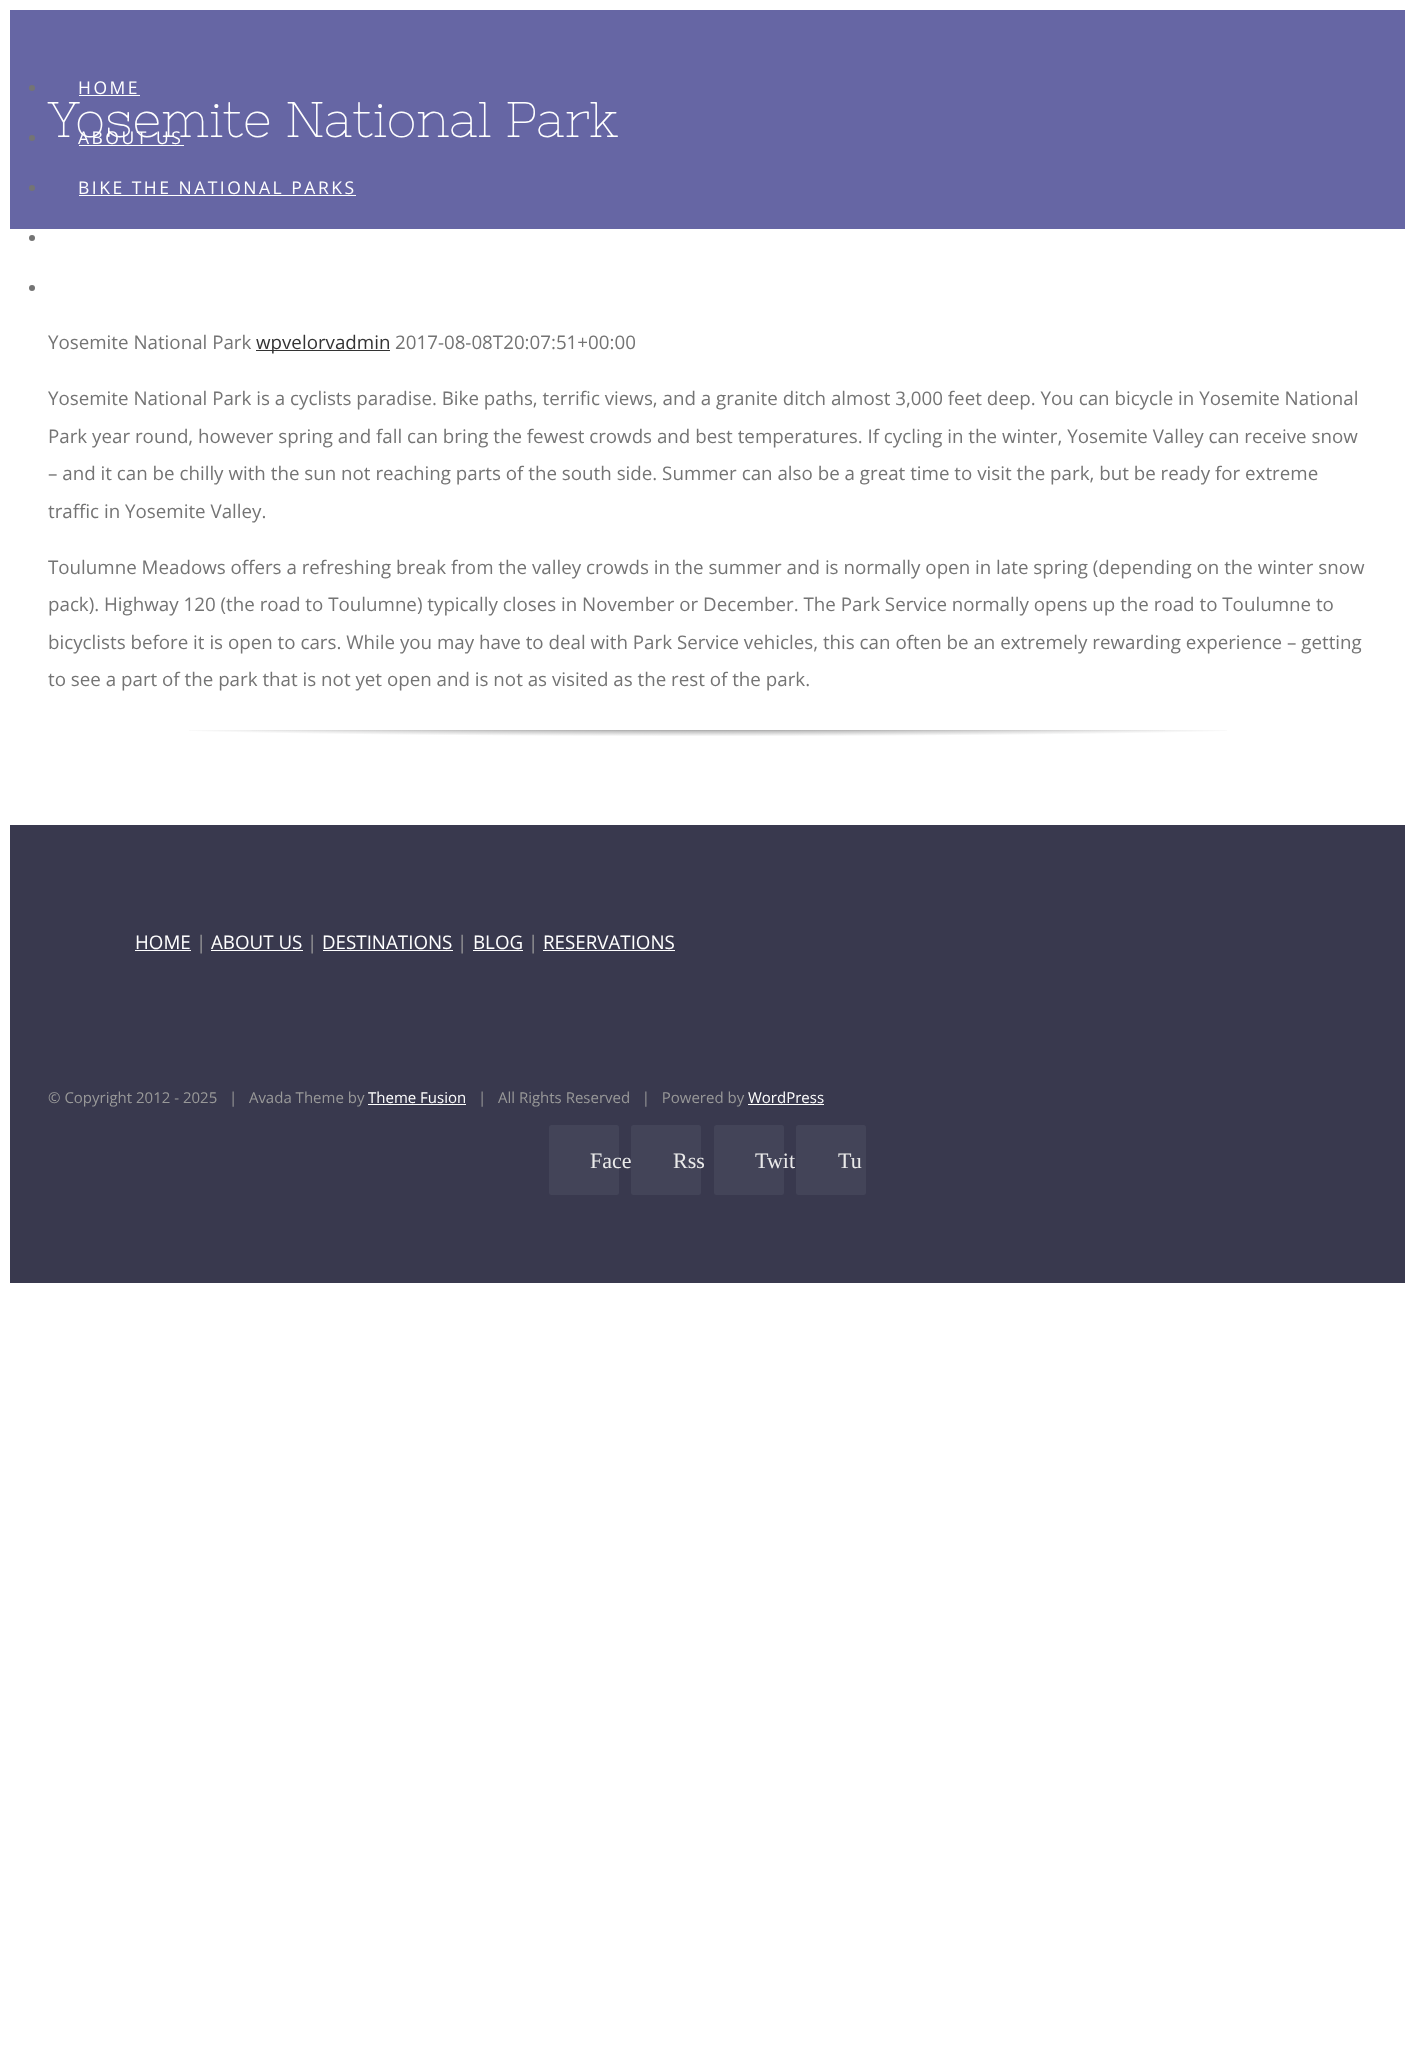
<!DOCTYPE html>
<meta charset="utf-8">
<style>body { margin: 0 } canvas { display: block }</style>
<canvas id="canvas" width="1415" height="2051"></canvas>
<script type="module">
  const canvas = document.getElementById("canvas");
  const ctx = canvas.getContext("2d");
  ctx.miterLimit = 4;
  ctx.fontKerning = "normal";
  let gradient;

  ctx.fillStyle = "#ffffff";
  ctx.fillRect(0, 0, 1415, 2051);
  ctx.fillStyle = "#6666a4";
  ctx.fillRect(10, 10, 1395, 219);
  ctx.fillStyle = "#747474";
  ctx.beginPath();
  ctx.arc(32, 88, 3, 0, Math.PI * 2);
  ctx.fill();
  ctx.letterSpacing = "2.5px";
  ctx.font = "17.5px Open Sans";
  ctx.fillStyle = "#ffffff";
  ctx.fillText("HOME", 78, 94);
  ctx.fillRect(79, 95, 61, 1);
  ctx.fillStyle = "#747474";
  ctx.beginPath();
  ctx.arc(32, 138, 3, 0, Math.PI * 2);
  ctx.fill();
  ctx.letterSpacing = "0px";
  ctx.font = "50px Nixie One";
  ctx.fillStyle = "#ffffff";
  ctx.fillText("Yosemite National Park", 48, 137);
  ctx.letterSpacing = "2.5px";
  ctx.font = "17.5px Open Sans";
  ctx.fillText("ABOUT US", 78, 144);
  ctx.fillRect(79, 145, 105, 1);
  ctx.fillStyle = "#747474";
  ctx.beginPath();
  ctx.arc(32, 188, 3, 0, Math.PI * 2);
  ctx.fill();
  ctx.fillStyle = "#ffffff";
  ctx.fillText("BIKE THE NATIONAL PARKS", 78, 194);
  ctx.fillRect(79, 195, 277, 1);
  ctx.fillStyle = "#747474";
  ctx.beginPath();
  ctx.arc(32, 238, 3, 0, Math.PI * 2);
  ctx.fill();
  ctx.beginPath();
  ctx.arc(32, 288, 3, 0, Math.PI * 2);
  ctx.fill();
  ctx.letterSpacing = "0px";
  ctx.font = "18.75px Open Sans";
  ctx.fillText("Yosemite National Park", 48, 349);
  ctx.fillStyle = "#333333";
  ctx.fillRect(256, 350, 134, 1);
  ctx.fillText("wpvelorvadmin", 256, 349);
  ctx.fillStyle = "#747474";
  ctx.fillText("2017-08-08T20:07:51+00:00", 395, 349);
  ctx.fillText("Yosemite National Park is a cyclists paradise. Bike paths, terrific views, and a granite ditch almost 3,000 feet deep. You can bicycle in Yosemite National", 48, 405);
  ctx.fillText("Park year round, however spring and fall can bring the fewest crowds and best temperatures. If cycling in the winter, Yosemite Valley can receive snow", 48, 443);
  ctx.fillText("– and it can be chilly with the sun not reaching parts of the south side. Summer can also be a great time to visit the park, but be ready for extreme", 48, 480);
  ctx.fillText("traffic in Yosemite Valley.", 48, 518);
  ctx.fillText("Toulumne Meadows offers a refreshing break from the valley crowds in the summer and is normally open in late spring (depending on the winter snow", 48, 574);
  ctx.fillText("pack). Highway 120 (the road to Toulumne) typically closes in November or December. The Park Service normally opens up the road to Toulumne to", 48, 611);
  ctx.fillText("bicyclists before it is open to cars. While you may have to deal with Park Service vehicles, this can often be an extremely rewarding experience – getting", 48, 649);
  ctx.fillText("to see a part of the park that is not yet open and is not as visited as the rest of the park.", 48, 686);
  gradient = ctx.createRadialGradient(708, 251910, 0, 708, 251910, 933);
  gradient.addColorStop(0, "#e0dede");
  gradient.addColorStop(0.8, "#ffffff");
  ctx.fillStyle = gradient;
  ctx.beginPath();
  ctx.rect(251, 730, 914, 1);
  ctx.save();
  ctx.clip();
  ctx.scale(1, 2.7 / 933);
  ctx.fillRect(0, 0, 1415, 708735);
  ctx.restore();
  gradient = ctx.createRadialGradient(708, 42334.88, 0, 708, 42334.88, 933);
  gradient.addColorStop(0, "rgba(0, 0, 0, 0.5)");
  gradient.addColorStop(0.65, "rgba(0, 0, 0, 0)");
  ctx.fillStyle = gradient;
  ctx.beginPath();
  ctx.rect(189, 730, 1038, 6);
  ctx.save();
  ctx.clip();
  ctx.scale(1, 16 / 933);
  ctx.fillRect(0, 0, 1415, 119599);
  ctx.restore();
  ctx.fillStyle = "#39394e";
  ctx.fillRect(10, 825, 1395, 458);
  ctx.fillStyle = "#ffffff";
  ctx.fillText("HOME", 135, 949);
  ctx.fillRect(135, 950, 56, 1);
  ctx.fillStyle = "#999999";
  ctx.fillText("|", 196, 949);
  ctx.fillStyle = "#ffffff";
  ctx.fillText("ABOUT US", 211, 949);
  ctx.fillRect(211, 950, 92, 1);
  ctx.fillStyle = "#999999";
  ctx.fillText("|", 307, 949);
  ctx.fillStyle = "#ffffff";
  ctx.fillText("DESTINATIONS", 322, 949);
  ctx.fillRect(323, 950, 130, 1);
  ctx.fillStyle = "#999999";
  ctx.fillText("|", 457, 949);
  ctx.fillStyle = "#ffffff";
  ctx.fillText("BLOG", 473, 949);
  ctx.fillRect(473, 950, 50, 1);
  ctx.fillStyle = "#999999";
  ctx.fillText("|", 528, 949);
  ctx.fillStyle = "#ffffff";
  ctx.fillText("RESERVATIONS", 543, 949);
  ctx.fillRect(543, 950, 132, 1);
  ctx.font = "15px Open Sans";
  ctx.fillStyle = "#999999";
  ctx.fillText("© Copyright 2012 - 2025   |   Avada Theme by", 48, 1103);
  ctx.fillStyle = "#ffffff";
  ctx.fillText("Theme Fusion", 368, 1103);
  ctx.fillRect(368, 1104, 98, 1);
  ctx.fillStyle = "#999999";
  ctx.fillText("|   All Rights Reserved   |   Powered by", 478, 1103);
  ctx.fillStyle = "#ffffff";
  ctx.fillText("WordPress", 748, 1103);
  ctx.fillRect(748, 1104, 76, 1);
  ctx.fillStyle = "#434458";
  ctx.beginPath();
  ctx.roundRect(549, 1125, 70, 70, 2.5);
  ctx.fill();
  ctx.font = "22px Liberation Serif";
  ctx.fillStyle = "#eaeaea";
  ctx.fillText("Face", 590, 1168);
  ctx.fillStyle = "#434458";
  ctx.beginPath();
  ctx.roundRect(631, 1125, 70, 70, 2.5);
  ctx.fill();
  ctx.fillStyle = "#eaeaea";
  ctx.fillText("Rss", 673, 1168);
  ctx.fillStyle = "#434458";
  ctx.beginPath();
  ctx.roundRect(714, 1125, 70, 70, 2.5);
  ctx.fill();
  ctx.fillStyle = "#eaeaea";
  ctx.fillText("Twit", 755, 1168);
  ctx.fillStyle = "#434458";
  ctx.beginPath();
  ctx.roundRect(796, 1125, 70, 70, 2.5);
  ctx.fill();
  ctx.fillStyle = "#eaeaea";
  ctx.fillText("Tu", 838, 1168);
</script>
